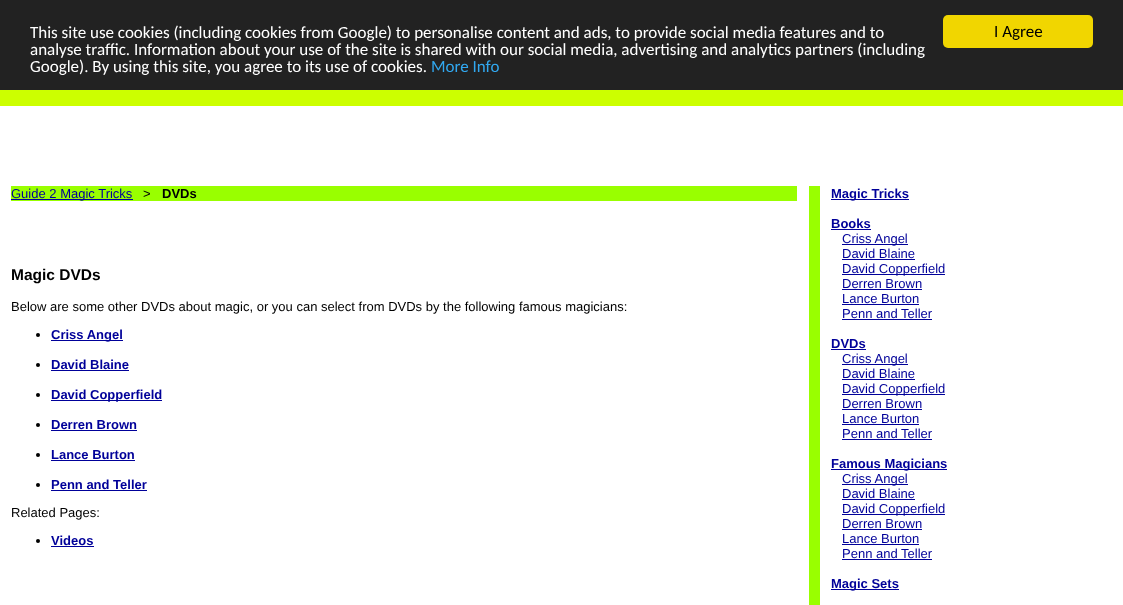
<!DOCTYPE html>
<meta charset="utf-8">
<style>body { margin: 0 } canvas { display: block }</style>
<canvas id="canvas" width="1123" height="605"></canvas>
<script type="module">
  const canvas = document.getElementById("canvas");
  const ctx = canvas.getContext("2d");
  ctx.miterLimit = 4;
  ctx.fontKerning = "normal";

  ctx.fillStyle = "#ffffff";
  ctx.fillRect(0, 0, 1123, 605);
  ctx.fillStyle = "#222222";
  ctx.fillRect(0, 0, 1123, 90);
  ctx.font = "17px Carlito";
  ctx.fillStyle = "#ffffff";
  ctx.fillText("This site use cookies (including cookies from Google) to personalise content and ads, to provide social media features and to", 30, 38);
  ctx.fillText("analyse traffic. Information about your use of the site is shared with our social media, advertising and analytics partners (including", 30, 55);
  ctx.fillText("Google). By using this site, you agree to its use of cookies.", 30, 72);
  ctx.fillStyle = "#31a8f0";
  ctx.fillText("More Info", 431, 72);
  ctx.fillStyle = "#f1d600";
  ctx.beginPath();
  ctx.roundRect(943, 15, 150, 33, 5);
  ctx.fill();
  ctx.fillStyle = "#000000";
  ctx.fillText("I Agree", 994, 37);
  ctx.fillStyle = "#ccff00";
  ctx.fillRect(0, 90, 1123, 16);
  ctx.fillStyle = "#99ff00";
  ctx.fillRect(11, 186, 786, 15);
  ctx.fillStyle = "#000099";
  ctx.fillRect(11, 199, 122, 1);
  ctx.font = "13px Liberation Sans";
  ctx.fillText("Guide 2 Magic Tricks", 11, 198);
  ctx.fillStyle = "#000000";
  ctx.fillText(">", 143, 198);
  ctx.font = "bold 13px Liberation Sans";
  ctx.fillText("DVDs", 162, 198);
  ctx.font = "bold 15.5px Liberation Sans";
  ctx.fillText("Magic DVDs", 11, 280);
  ctx.font = "13px Liberation Sans";
  ctx.fillText("Below are some other DVDs about magic, or you can select from DVDs by the following famous magicians:", 11, 311);
  ctx.beginPath();
  ctx.arc(38, 335, 2, 0, Math.PI * 2);
  ctx.fill();
  ctx.fillStyle = "#000099";
  ctx.fillRect(51, 340, 72, 1);
  ctx.font = "bold 13px Liberation Sans";
  ctx.fillText("Criss Angel", 51, 339);
  ctx.fillStyle = "#000000";
  ctx.beginPath();
  ctx.arc(38, 365, 2, 0, Math.PI * 2);
  ctx.fill();
  ctx.fillStyle = "#000099";
  ctx.fillText("David Blaine", 51, 369);
  ctx.fillRect(51, 370, 78, 1);
  ctx.fillStyle = "#000000";
  ctx.beginPath();
  ctx.arc(38, 395, 2, 0, Math.PI * 2);
  ctx.fill();
  ctx.fillStyle = "#000099";
  ctx.fillRect(51, 400, 111, 1);
  ctx.fillText("David Copperfield", 51, 399);
  ctx.fillStyle = "#000000";
  ctx.beginPath();
  ctx.arc(38, 425, 2, 0, Math.PI * 2);
  ctx.fill();
  ctx.fillStyle = "#000099";
  ctx.fillText("Derren Brown", 51, 429);
  ctx.fillRect(51, 430, 86, 1);
  ctx.fillStyle = "#000000";
  ctx.beginPath();
  ctx.arc(38, 455, 2, 0, Math.PI * 2);
  ctx.fill();
  ctx.fillStyle = "#000099";
  ctx.fillText("Lance Burton", 51, 459);
  ctx.fillRect(51, 460, 84, 1);
  ctx.fillStyle = "#000000";
  ctx.beginPath();
  ctx.arc(38, 485, 2, 0, Math.PI * 2);
  ctx.fill();
  ctx.fillStyle = "#000099";
  ctx.fillText("Penn and Teller", 51, 489);
  ctx.fillRect(51, 490, 96, 1);
  ctx.font = "13px Liberation Sans";
  ctx.fillStyle = "#000000";
  ctx.fillText("Related Pages:", 11, 517);
  ctx.beginPath();
  ctx.arc(38, 541, 2, 0, Math.PI * 2);
  ctx.fill();
  ctx.font = "bold 13px Liberation Sans";
  ctx.fillStyle = "#000099";
  ctx.fillText("Videos", 51, 545);
  ctx.fillRect(51, 546, 43, 1);
  ctx.fillStyle = "#99ff00";
  ctx.fillRect(809, 186, 11, 419);
  ctx.fillStyle = "#000099";
  ctx.fillRect(831, 199, 78, 1);
  ctx.fillText("Magic Tricks", 831, 198);
  ctx.fillText("Books", 831, 228);
  ctx.fillRect(831, 229, 40, 1);
  ctx.fillRect(842, 244, 66, 1);
  ctx.font = "13px Liberation Sans";
  ctx.fillText("Criss Angel", 842, 243);
  ctx.fillText("David Blaine", 842, 258);
  ctx.fillRect(842, 259, 73, 1);
  ctx.fillRect(842, 274, 103, 1);
  ctx.fillText("David Copperfield", 842, 273);
  ctx.fillText("Derren Brown", 842, 288);
  ctx.fillRect(842, 289, 80, 1);
  ctx.fillText("Lance Burton", 842, 303);
  ctx.fillRect(842, 304, 77, 1);
  ctx.fillText("Penn and Teller", 842, 318);
  ctx.fillRect(842, 319, 90, 1);
  ctx.font = "bold 13px Liberation Sans";
  ctx.fillText("DVDs", 831, 348);
  ctx.fillRect(831, 349, 35, 1);
  ctx.fillRect(842, 364, 66, 1);
  ctx.font = "13px Liberation Sans";
  ctx.fillText("Criss Angel", 842, 363);
  ctx.fillText("David Blaine", 842, 378);
  ctx.fillRect(842, 379, 73, 1);
  ctx.fillRect(842, 394, 103, 1);
  ctx.fillText("David Copperfield", 842, 393);
  ctx.fillText("Derren Brown", 842, 408);
  ctx.fillRect(842, 409, 80, 1);
  ctx.fillText("Lance Burton", 842, 423);
  ctx.fillRect(842, 424, 77, 1);
  ctx.fillText("Penn and Teller", 842, 438);
  ctx.fillRect(842, 439, 90, 1);
  ctx.fillRect(831, 469, 116, 1);
  ctx.font = "bold 13px Liberation Sans";
  ctx.fillText("Famous Magicians", 831, 468);
  ctx.fillRect(842, 484, 66, 1);
  ctx.font = "13px Liberation Sans";
  ctx.fillText("Criss Angel", 842, 483);
  ctx.fillText("David Blaine", 842, 498);
  ctx.fillRect(842, 499, 73, 1);
  ctx.fillRect(842, 514, 103, 1);
  ctx.fillText("David Copperfield", 842, 513);
  ctx.fillText("Derren Brown", 842, 528);
  ctx.fillRect(842, 529, 80, 1);
  ctx.fillText("Lance Burton", 842, 543);
  ctx.fillRect(842, 544, 77, 1);
  ctx.fillText("Penn and Teller", 842, 558);
  ctx.fillRect(842, 559, 90, 1);
  ctx.fillRect(831, 589, 68, 1);
  ctx.font = "bold 13px Liberation Sans";
  ctx.fillText("Magic Sets", 831, 588);
</script>
